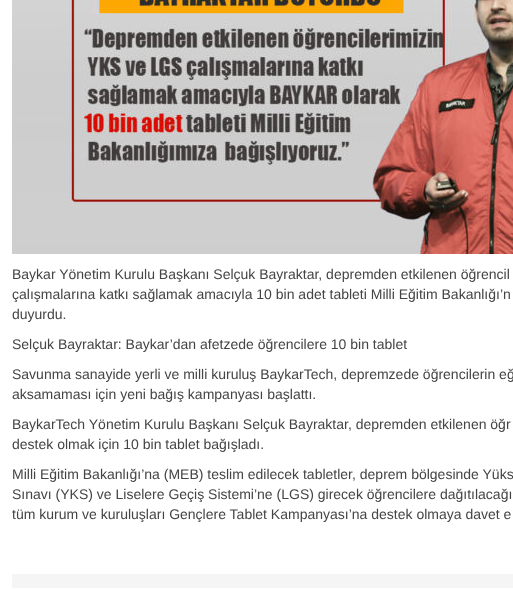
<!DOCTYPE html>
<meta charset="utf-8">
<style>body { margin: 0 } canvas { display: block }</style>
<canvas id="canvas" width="513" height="590"></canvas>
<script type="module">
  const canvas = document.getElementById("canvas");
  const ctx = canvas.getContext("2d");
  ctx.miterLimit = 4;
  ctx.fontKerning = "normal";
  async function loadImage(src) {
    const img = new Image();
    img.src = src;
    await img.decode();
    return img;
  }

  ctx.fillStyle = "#ffffff";
  ctx.fillRect(0, 0, 513, 590);
  ctx.drawImage(await loadImage("img1.png"), 12, 0, 501, 254);
  ctx.font = "14px Liberation Sans";
  ctx.fillStyle = "#444444";
  ctx.fillText("Baykar Yönetim Kurulu Başkanı Selçuk Bayraktar, depremden etkilenen öğrencil", 12, 279);
  ctx.fillText("çalışmalarına katkı sağlamak amacıyla 10 bin adet tableti Milli Eğitim Bakanlığı’n", 12, 299);
  ctx.fillText("duyurdu.", 12, 319);
  ctx.fillText("Selçuk Bayraktar: Baykar’dan afetzede öğrencilere 10 bin tablet", 12, 349);
  ctx.fillText("Savunma sanayide yerli ve milli kuruluş BaykarTech, depremzede öğrencilerin eğ", 12, 379);
  ctx.fillText("aksamaması için yeni bağış kampanyası başlattı.", 12, 399);
  ctx.fillText("BaykarTech Yönetim Kurulu Başkanı Selçuk Bayraktar, depremden etkilenen öğr", 12, 429);
  ctx.fillText("destek olmak için 10 bin tablet bağışladı.", 12, 449);
  ctx.fillText("Milli Eğitim Bakanlığı’na (MEB) teslim edilecek tabletler, deprem bölgesinde Yüks", 12, 479);
  ctx.fillText("Sınavı (YKS) ve Liselere Geçiş Sistemi’ne (LGS) girecek öğrencilere dağıtılacağı", 12, 499);
  ctx.fillText("tüm kurum ve kuruluşları Gençlere Tablet Kampanyası’na destek olmaya davet e", 12, 519);
  ctx.fillStyle = "#f5f5f5";
  ctx.fillRect(12, 574, 501, 14);
</script>
